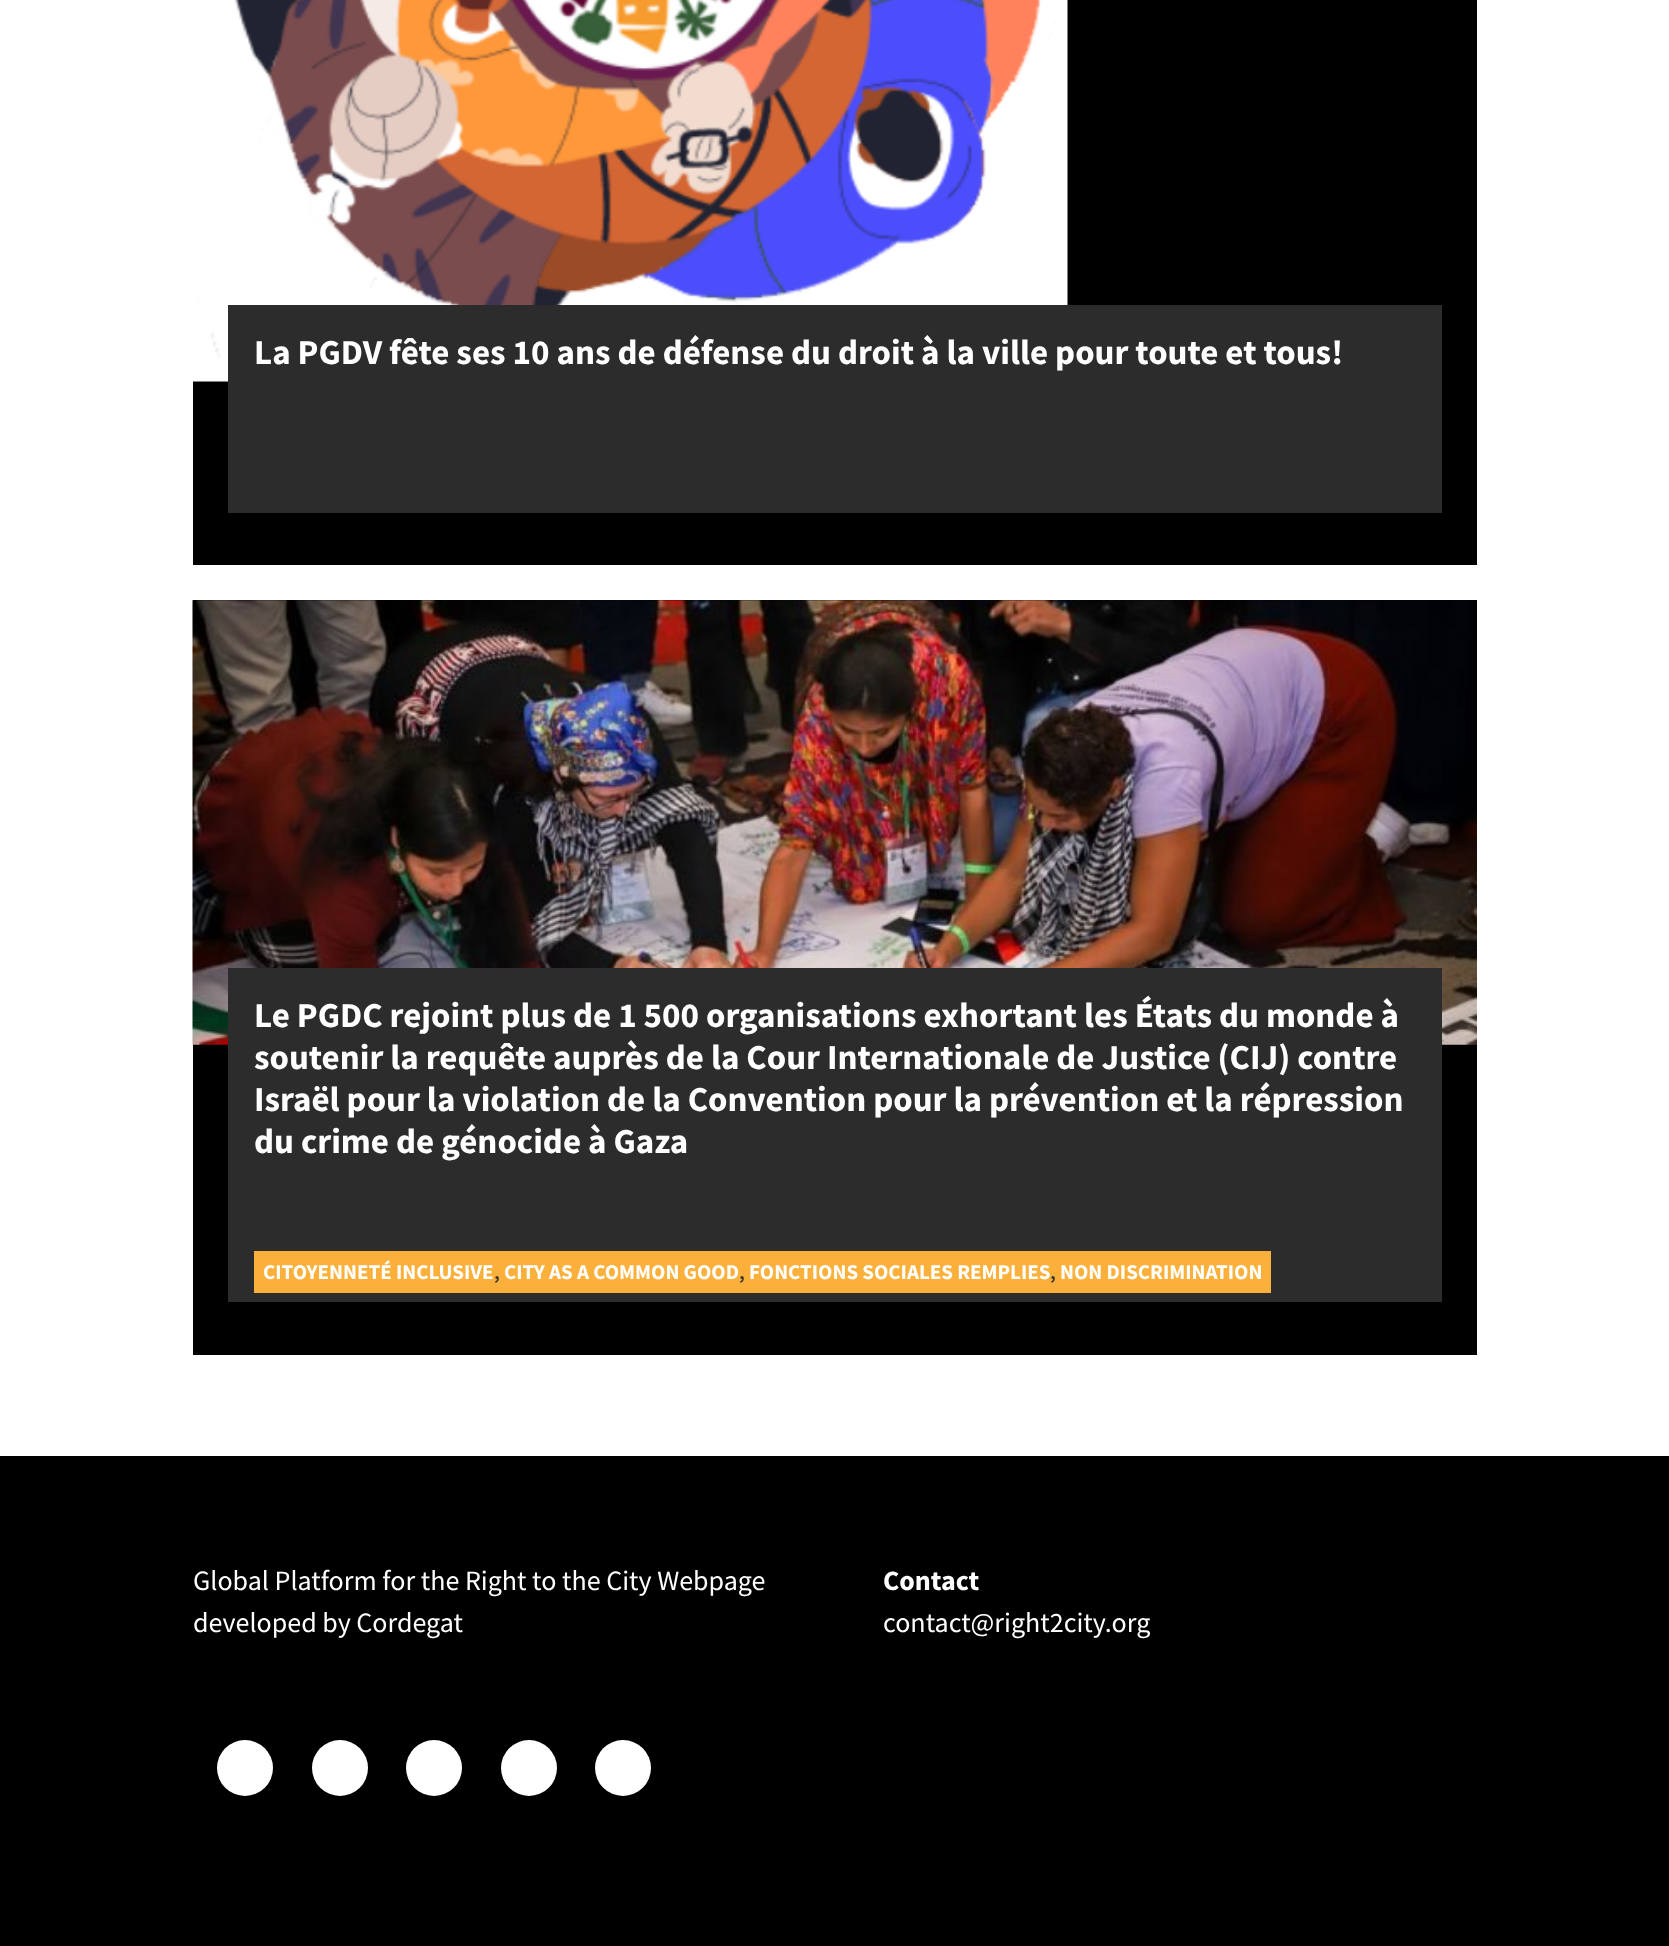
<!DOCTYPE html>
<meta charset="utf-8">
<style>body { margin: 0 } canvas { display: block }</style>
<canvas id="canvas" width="1669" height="1946"></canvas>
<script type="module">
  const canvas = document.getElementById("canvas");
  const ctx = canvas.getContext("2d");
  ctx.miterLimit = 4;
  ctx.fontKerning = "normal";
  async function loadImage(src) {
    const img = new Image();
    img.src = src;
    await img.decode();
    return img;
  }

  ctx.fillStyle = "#ffffff";
  ctx.fillRect(0, 0, 1669, 1946);
  ctx.fillStyle = "#000000";
  ctx.fillRect(193, 0, 1284, 565);
  ctx.drawImage(await loadImage("img1.png"), 193, 0, 875, 382);
  ctx.fillStyle = "#2c2c2c";
  ctx.fillRect(228, 305, 1214, 208);
  ctx.font = "bold 35px Source Sans Pro";
  ctx.fillStyle = "#ffffff";
  ctx.fillText("La PGDV fête ses 10 ans de défense du droit à la ville pour toute et tous!", 254, 364);
  ctx.fillStyle = "#000000";
  ctx.fillRect(193, 600, 1284, 755);
  ctx.drawImage(await loadImage("img2.png"), 192, 600, 1285, 445);
  ctx.fillStyle = "#2c2c2c";
  ctx.fillRect(228, 968, 1214, 334);
  ctx.fillStyle = "#ffffff";
  ctx.fillText("Le PGDC rejoint plus de 1 500 organisations exhortant les États du monde à", 254, 1027);
  ctx.fillText("soutenir la requête auprès de la Cour Internationale de Justice (CIJ) contre", 254, 1069);
  ctx.fillText("Israël pour la violation de la Convention pour la prévention et la répression", 254, 1111);
  ctx.fillText("du crime de génocide à Gaza", 254, 1153);
  ctx.fillStyle = "#fbb03b";
  ctx.fillRect(254, 1251, 1017, 42);
  ctx.font = "bold 21px Source Sans Pro";
  ctx.fillStyle = "#ffffff";
  ctx.fillText("CITOYENNETÉ INCLUSIVE", 263, 1279);
  ctx.font = "600 21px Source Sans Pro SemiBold";
  ctx.fillStyle = "#333333";
  ctx.fillText(",", 494, 1279);
  ctx.font = "bold 21px Source Sans Pro";
  ctx.fillStyle = "#ffffff";
  ctx.fillText("CITY AS A COMMON GOOD", 504, 1279);
  ctx.font = "600 21px Source Sans Pro SemiBold";
  ctx.fillStyle = "#333333";
  ctx.fillText(",", 739, 1279);
  ctx.font = "bold 21px Source Sans Pro";
  ctx.fillStyle = "#ffffff";
  ctx.fillText("FONCTIONS SOCIALES REMPLIES", 749, 1279);
  ctx.font = "600 21px Source Sans Pro SemiBold";
  ctx.fillStyle = "#333333";
  ctx.fillText(",", 1050, 1279);
  ctx.font = "bold 21px Source Sans Pro";
  ctx.fillStyle = "#ffffff";
  ctx.fillText("NON DISCRIMINATION", 1060, 1279);
  ctx.fillStyle = "#000000";
  ctx.fillRect(0, 1456, 1669, 490);
  ctx.font = "28px Source Sans Pro";
  ctx.fillStyle = "#ffffff";
  ctx.fillText("Global Platform for the Right to the City Webpage", 193, 1590);
  ctx.fillText("developed by Cordegat", 193, 1632);
  ctx.font = "bold 28px Source Sans Pro";
  ctx.fillText("Contact", 883, 1590);
  ctx.font = "28px Source Sans Pro";
  ctx.fillText("contact@right2city.org", 883, 1632);
  ctx.beginPath();
  ctx.arc(245, 1768, 28, 0, Math.PI * 2);
  ctx.fill();
  ctx.beginPath();
  ctx.arc(340, 1768, 28, 0, Math.PI * 2);
  ctx.fill();
  ctx.beginPath();
  ctx.arc(434, 1768, 28, 0, Math.PI * 2);
  ctx.fill();
  ctx.beginPath();
  ctx.arc(529, 1768, 28, 0, Math.PI * 2);
  ctx.fill();
  ctx.beginPath();
  ctx.arc(623, 1768, 28, 0, Math.PI * 2);
  ctx.fill();
</script>
